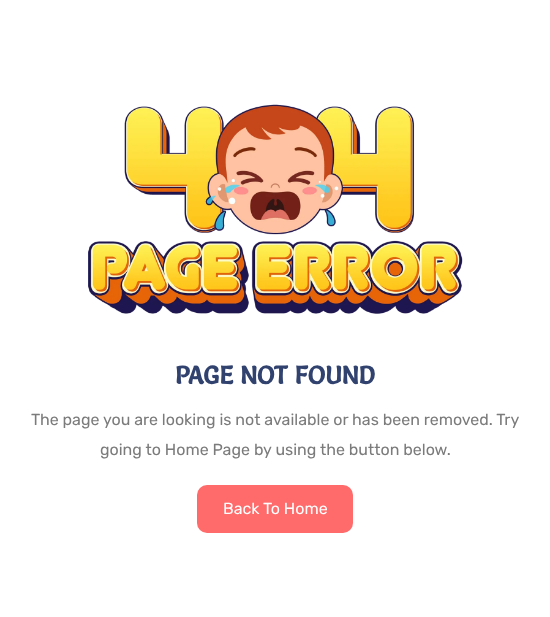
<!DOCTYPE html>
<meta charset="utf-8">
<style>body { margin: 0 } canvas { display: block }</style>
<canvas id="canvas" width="550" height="617"></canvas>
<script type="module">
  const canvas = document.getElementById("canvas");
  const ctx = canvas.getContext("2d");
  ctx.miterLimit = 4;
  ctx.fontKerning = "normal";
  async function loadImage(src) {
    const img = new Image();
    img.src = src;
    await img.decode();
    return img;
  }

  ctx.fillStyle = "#ffffff";
  ctx.fillRect(0, 0, 550, 617);
  ctx.drawImage(await loadImage("img1.png"), 88, 104, 375, 210);
  ctx.font = "bold 25px Salsa";
  ctx.fillStyle = "#31426f";
  ctx.fillText("PAGE NOT FOUND", 175, 384);
  ctx.font = "16px Rubik";
  ctx.fillStyle = "#7b7b7b";
  ctx.fillText("The page you are looking is not available or has been removed. Try", 31, 425);
  ctx.fillText("going to Home Page by using the button below.", 100, 455);
  ctx.fillStyle = "#ff6a6a";
  ctx.beginPath();
  ctx.roundRect(197, 485, 156, 48, 10);
  ctx.fill();
  ctx.fillStyle = "#ffffff";
  ctx.fillText("Back To Home", 223, 514);
</script>
